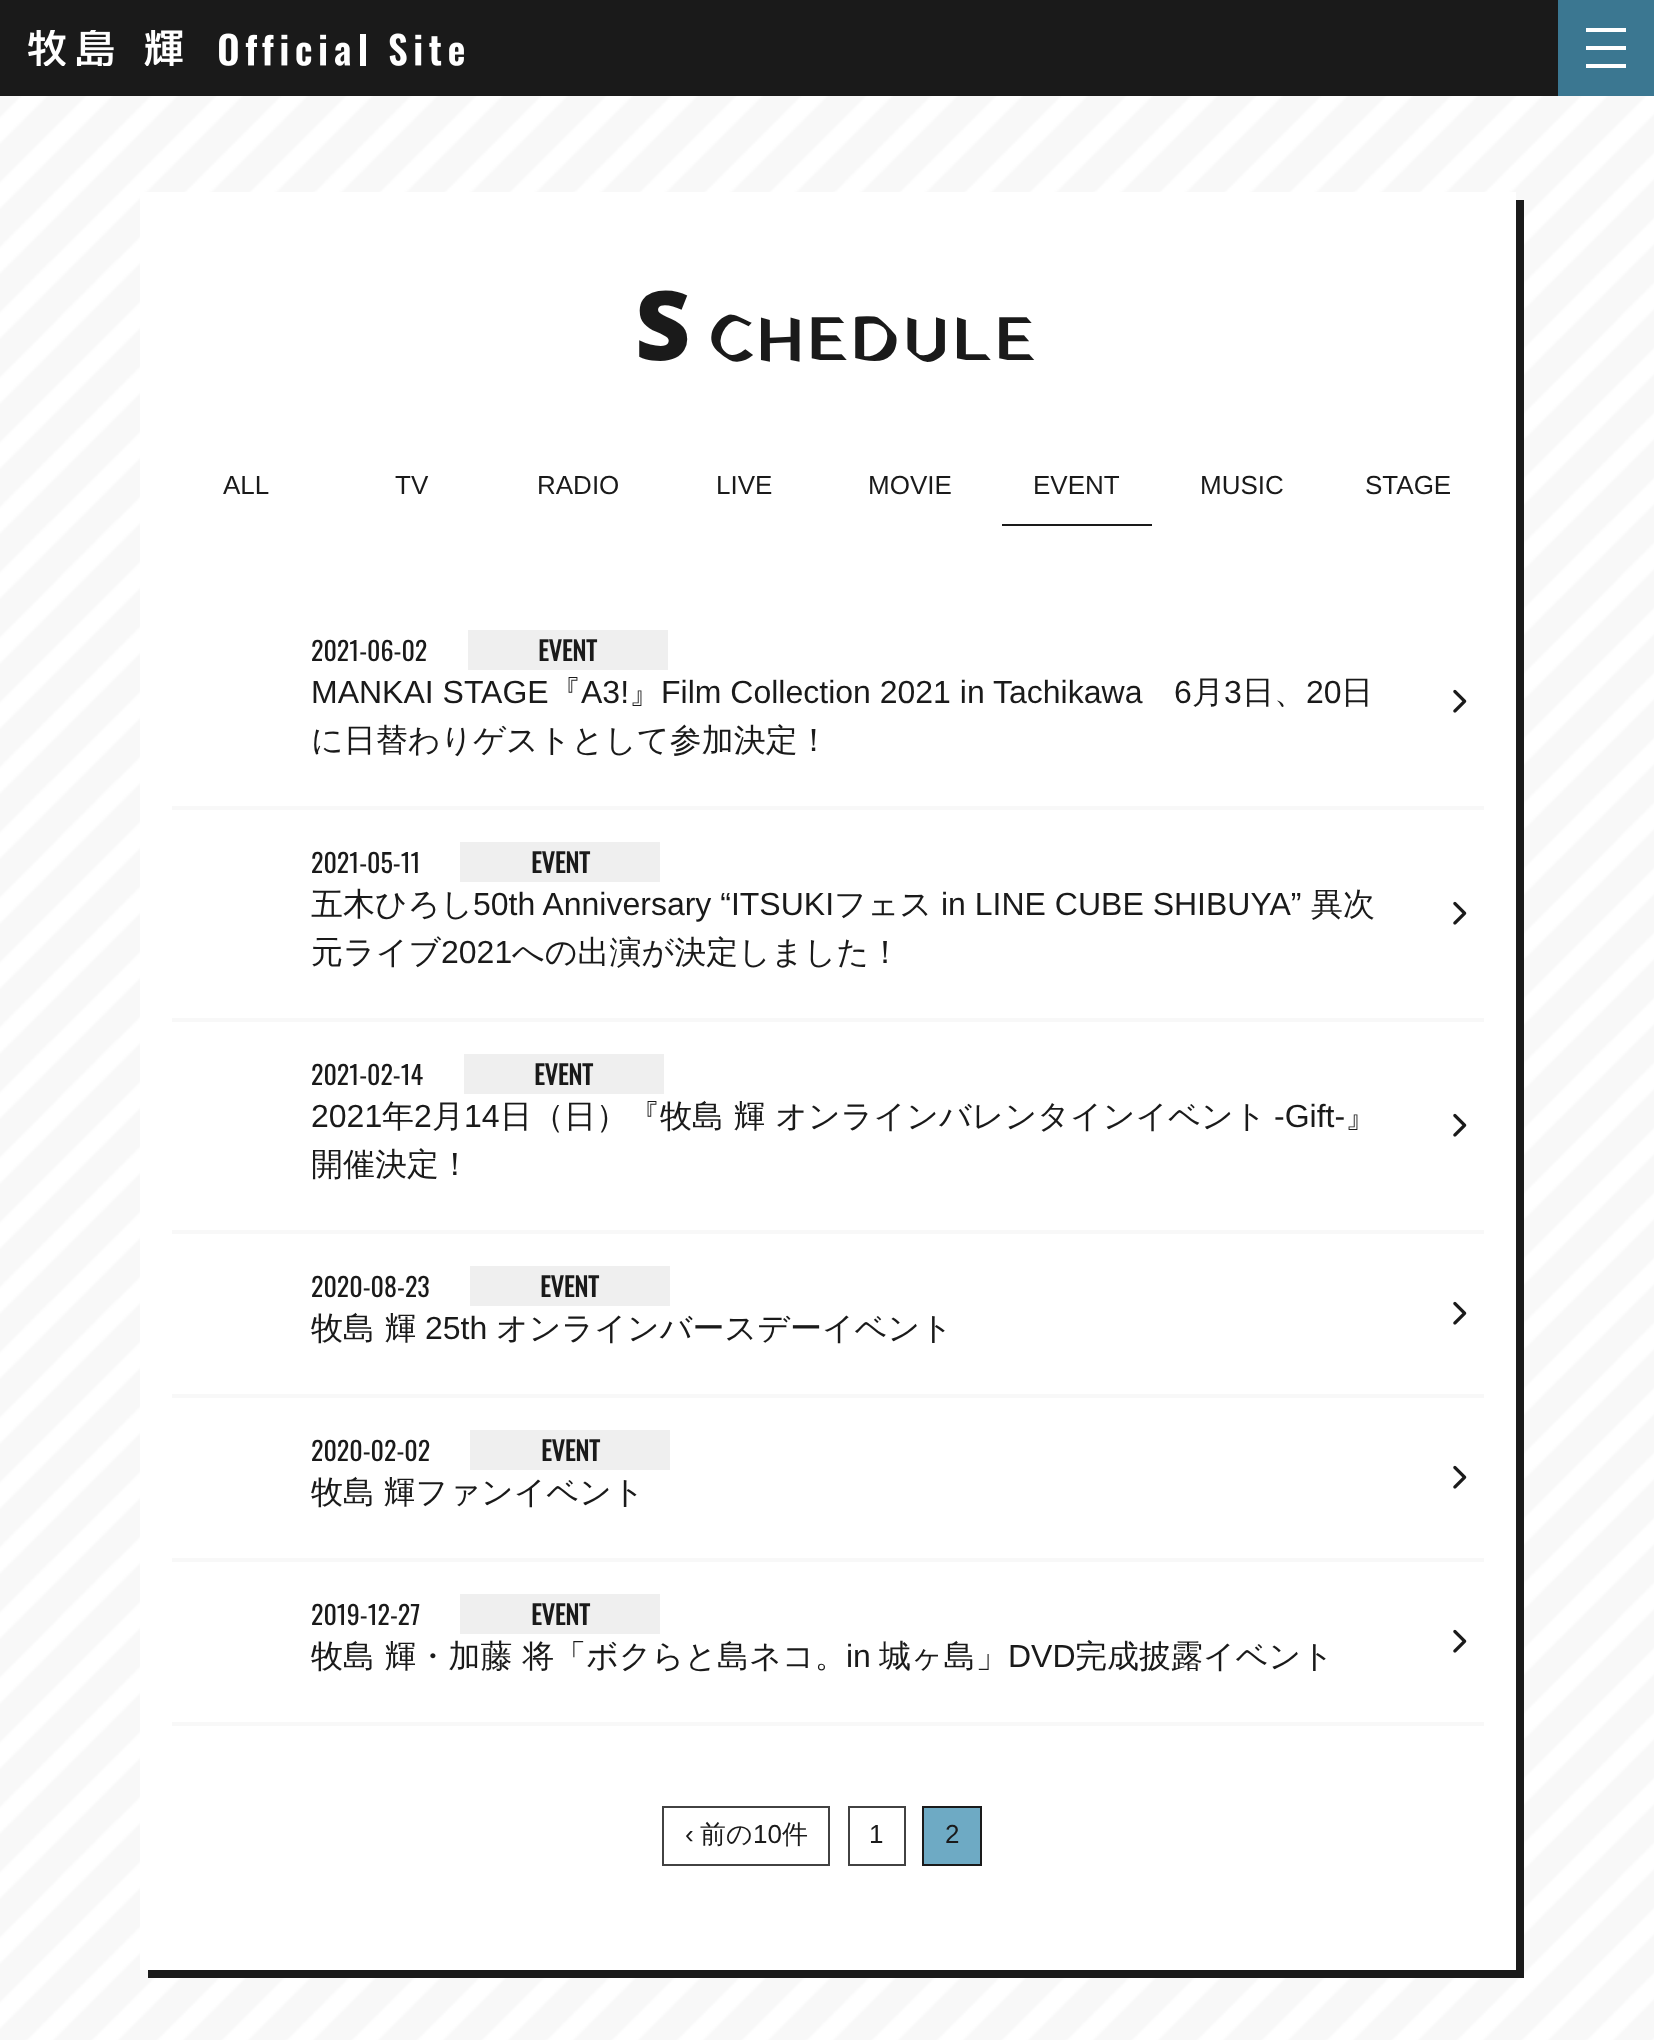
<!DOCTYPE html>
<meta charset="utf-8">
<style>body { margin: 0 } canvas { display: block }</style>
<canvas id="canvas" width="1654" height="2040"></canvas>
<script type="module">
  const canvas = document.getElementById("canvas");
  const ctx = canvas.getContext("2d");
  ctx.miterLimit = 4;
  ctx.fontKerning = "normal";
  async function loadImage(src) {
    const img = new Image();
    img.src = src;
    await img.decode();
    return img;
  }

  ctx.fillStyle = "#ffffff";
  ctx.fillRect(0, 0, 1654, 2040);
  ctx.drawImage(await loadImage("img1.png"), 0, 96, 1654, 1944);
  ctx.fillStyle = "#1a1a1a";
  ctx.fillRect(0, 0, 1558, 96);
  ctx.drawImage(await loadImage("img2.png"), 28, 30, 436, 36);
  ctx.fillStyle = "#3b7791";
  ctx.fillRect(1558, 0, 96, 96);
  ctx.fillStyle = "#ffffff";
  ctx.fillRect(1586, 28, 40, 4);
  ctx.fillRect(1586, 46, 40, 4);
  ctx.fillRect(1586, 64, 40, 4);
  ctx.fillRect(140, 192, 1376, 1778);
  ctx.letterSpacing = "3.25px";
  ctx.font = "900 96px Noto Sans";
  ctx.fillStyle = "#1a1a1a";
  ctx.fillText("S", 635, 360);
  ctx.font = "64px Yatra One";
  ctx.fillText("CHEDULE", 708, 360);
  ctx.fillRect(1516, 200, 8, 1778);
  ctx.letterSpacing = "0px";
  ctx.font = "26px Liberation Sans";
  ctx.fillText("ALL", 223, 494);
  ctx.fillText("TV", 395, 494);
  ctx.fillText("RADIO", 537, 494);
  ctx.fillText("LIVE", 716, 494);
  ctx.fillText("MOVIE", 868, 494);
  ctx.fillText("EVENT", 1033, 494);
  ctx.fillRect(1002, 524, 150, 2);
  ctx.fillText("MUSIC", 1200, 494);
  ctx.fillText("STAGE", 1365, 494);
  ctx.fillStyle = "#f8f8f8";
  ctx.fillRect(172, 806, 1312, 4);
  ctx.font = "26px Oswald";
  ctx.fillStyle = "#1a1a1a";
  ctx.fillText("2021-06-02", 311, 661);
  ctx.fillStyle = "#efefef";
  ctx.fillRect(468, 630, 200, 40);
  ctx.font = "bold 26px Oswald";
  ctx.fillStyle = "#1a1a1a";
  ctx.fillText("EVENT", 538, 661);
  ctx.font = "32px Liberation Sans";
  ctx.fillText("MANKAI STAGE", 311, 703);
  ctx.font = "500 32px WenQuanYi Zen Hei";
  ctx.fillText("『", 549, 703);
  ctx.font = "32px Liberation Sans";
  ctx.fillText("A3!", 581, 703);
  ctx.font = "500 32px WenQuanYi Zen Hei";
  ctx.fillText("』", 629, 703);
  ctx.font = "32px Liberation Sans";
  ctx.fillText("Film Collection 2021 in Tachikawa", 661, 703);
  ctx.fillText("6", 1174, 703);
  ctx.font = "500 32px WenQuanYi Zen Hei";
  ctx.fillText("月", 1192, 703);
  ctx.font = "32px Liberation Sans";
  ctx.fillText("3", 1224, 703);
  ctx.font = "500 32px WenQuanYi Zen Hei";
  ctx.fillText("日、", 1242, 703);
  ctx.font = "32px Liberation Sans";
  ctx.fillText("20", 1306, 703);
  ctx.font = "500 32px WenQuanYi Zen Hei";
  ctx.fillText("日", 1341, 703);
  ctx.fillText("に日替わりゲストとして参加決定！", 311, 751);
  ctx.drawImage(await loadImage("img3.png"), 1453, 689, 14, 24);
  ctx.fillStyle = "#f8f8f8";
  ctx.fillRect(172, 1018, 1312, 4);
  ctx.font = "26px Oswald";
  ctx.fillStyle = "#1a1a1a";
  ctx.fillText("2021-05-11", 311, 873);
  ctx.fillStyle = "#efefef";
  ctx.fillRect(460, 842, 200, 40);
  ctx.font = "bold 26px Oswald";
  ctx.fillStyle = "#1a1a1a";
  ctx.fillText("EVENT", 531, 873);
  ctx.font = "500 32px WenQuanYi Zen Hei";
  ctx.fillText("五木ひろし", 311, 915);
  ctx.font = "32px Liberation Sans";
  ctx.fillText("50th Anniversary “ITSUKI", 473, 915);
  ctx.font = "500 32px WenQuanYi Zen Hei";
  ctx.fillText("フェス", 834, 915);
  ctx.font = "32px Liberation Sans";
  ctx.fillText("in LINE CUBE SHIBUYA”", 941, 915);
  ctx.font = "500 32px WenQuanYi Zen Hei";
  ctx.fillText("異次", 1311, 915);
  ctx.fillText("元ライブ", 311, 963);
  ctx.font = "32px Liberation Sans";
  ctx.fillText("2021", 441, 963);
  ctx.font = "500 32px WenQuanYi Zen Hei";
  ctx.fillText("への出演が決定しました！", 512, 963);
  ctx.drawImage(await loadImage("img3.png"), 1453, 901, 14, 24);
  ctx.fillStyle = "#f8f8f8";
  ctx.fillRect(172, 1230, 1312, 4);
  ctx.font = "26px Oswald";
  ctx.fillStyle = "#1a1a1a";
  ctx.fillText("2021-02-14", 311, 1085);
  ctx.fillStyle = "#efefef";
  ctx.fillRect(464, 1054, 200, 40);
  ctx.font = "bold 26px Oswald";
  ctx.fillStyle = "#1a1a1a";
  ctx.fillText("EVENT", 534, 1085);
  ctx.font = "32px Liberation Sans";
  ctx.fillText("2021", 311, 1127);
  ctx.font = "500 32px WenQuanYi Zen Hei";
  ctx.fillText("年", 382, 1127);
  ctx.font = "32px Liberation Sans";
  ctx.fillText("2", 414, 1127);
  ctx.font = "500 32px WenQuanYi Zen Hei";
  ctx.fillText("月", 432, 1127);
  ctx.font = "32px Liberation Sans";
  ctx.fillText("14", 464, 1127);
  ctx.font = "500 32px WenQuanYi Zen Hei";
  ctx.fillText("日（日）『牧島 輝 オンラインバレンタインイベント", 500, 1127);
  ctx.font = "32px Liberation Sans";
  ctx.fillText("-Gift-", 1274, 1127);
  ctx.font = "500 32px WenQuanYi Zen Hei";
  ctx.fillText("』", 1345, 1127);
  ctx.fillText("開催決定！", 311, 1175);
  ctx.drawImage(await loadImage("img3.png"), 1453, 1113, 14, 24);
  ctx.fillStyle = "#f8f8f8";
  ctx.fillRect(172, 1394, 1312, 4);
  ctx.font = "26px Oswald";
  ctx.fillStyle = "#1a1a1a";
  ctx.fillText("2020-08-23", 311, 1297);
  ctx.fillStyle = "#efefef";
  ctx.fillRect(470, 1266, 200, 40);
  ctx.font = "bold 26px Oswald";
  ctx.fillStyle = "#1a1a1a";
  ctx.fillText("EVENT", 540, 1297);
  ctx.font = "500 32px WenQuanYi Zen Hei";
  ctx.fillText("牧島 輝", 311, 1339);
  ctx.font = "32px Liberation Sans";
  ctx.fillText("25th", 425, 1339);
  ctx.font = "500 32px WenQuanYi Zen Hei";
  ctx.fillText("オンラインバースデーイベント", 496, 1339);
  ctx.drawImage(await loadImage("img3.png"), 1453, 1301, 14, 24);
  ctx.fillStyle = "#f8f8f8";
  ctx.fillRect(172, 1558, 1312, 4);
  ctx.font = "26px Oswald";
  ctx.fillStyle = "#1a1a1a";
  ctx.fillText("2020-02-02", 311, 1461);
  ctx.fillStyle = "#efefef";
  ctx.fillRect(470, 1430, 200, 40);
  ctx.font = "bold 26px Oswald";
  ctx.fillStyle = "#1a1a1a";
  ctx.fillText("EVENT", 541, 1461);
  ctx.wordSpacing = "-1px";
  ctx.font = "500 32px WenQuanYi Zen Hei";
  ctx.fillText("牧島 輝ファンイベント", 311, 1503);
  ctx.drawImage(await loadImage("img3.png"), 1453, 1465, 14, 24);
  ctx.fillStyle = "#f8f8f8";
  ctx.fillRect(172, 1722, 1312, 4);
  ctx.wordSpacing = "0px";
  ctx.font = "26px Oswald";
  ctx.fillStyle = "#1a1a1a";
  ctx.fillText("2019-12-27", 311, 1625);
  ctx.fillStyle = "#efefef";
  ctx.fillRect(460, 1594, 200, 40);
  ctx.font = "bold 26px Oswald";
  ctx.fillStyle = "#1a1a1a";
  ctx.fillText("EVENT", 531, 1625);
  ctx.font = "500 32px WenQuanYi Zen Hei";
  ctx.fillText("牧島 輝・加藤 将「ボクらと島ネコ。", 311, 1667);
  ctx.font = "32px Liberation Sans";
  ctx.fillText("in", 846, 1667);
  ctx.font = "500 32px WenQuanYi Zen Hei";
  ctx.fillText("城ヶ島」", 879, 1667);
  ctx.font = "32px Liberation Sans";
  ctx.fillText("DVD", 1008, 1667);
  ctx.font = "500 32px WenQuanYi Zen Hei";
  ctx.fillText("完成披露イベント", 1075, 1667);
  ctx.drawImage(await loadImage("img3.png"), 1453, 1629, 14, 24);
  ctx.strokeStyle = "#424242";
  ctx.lineWidth = 2;
  ctx.strokeRect(663, 1807, 166, 58);
  ctx.font = "26px Liberation Sans";
  ctx.fillText("‹", 685, 1843);
  ctx.font = "500 26px WenQuanYi Zen Hei";
  ctx.fillText("前の", 700, 1843);
  ctx.font = "26px Liberation Sans";
  ctx.fillText("10", 753, 1843);
  ctx.font = "500 26px WenQuanYi Zen Hei";
  ctx.fillText("件", 782, 1843);
  ctx.strokeRect(849, 1807, 56, 58);
  ctx.font = "26px Liberation Sans";
  ctx.fillText("1", 869, 1843);
  ctx.fillStyle = "#6eaac4";
  ctx.beginPath();
  ctx.rect(923, 1807, 58, 58);
  ctx.fill();
  ctx.strokeStyle = "#1a1a1a";
  ctx.stroke();
  ctx.fillStyle = "#1a1a1a";
  ctx.fillText("2", 945, 1843);
  ctx.fillRect(148, 1970, 1376, 8);
</script>
